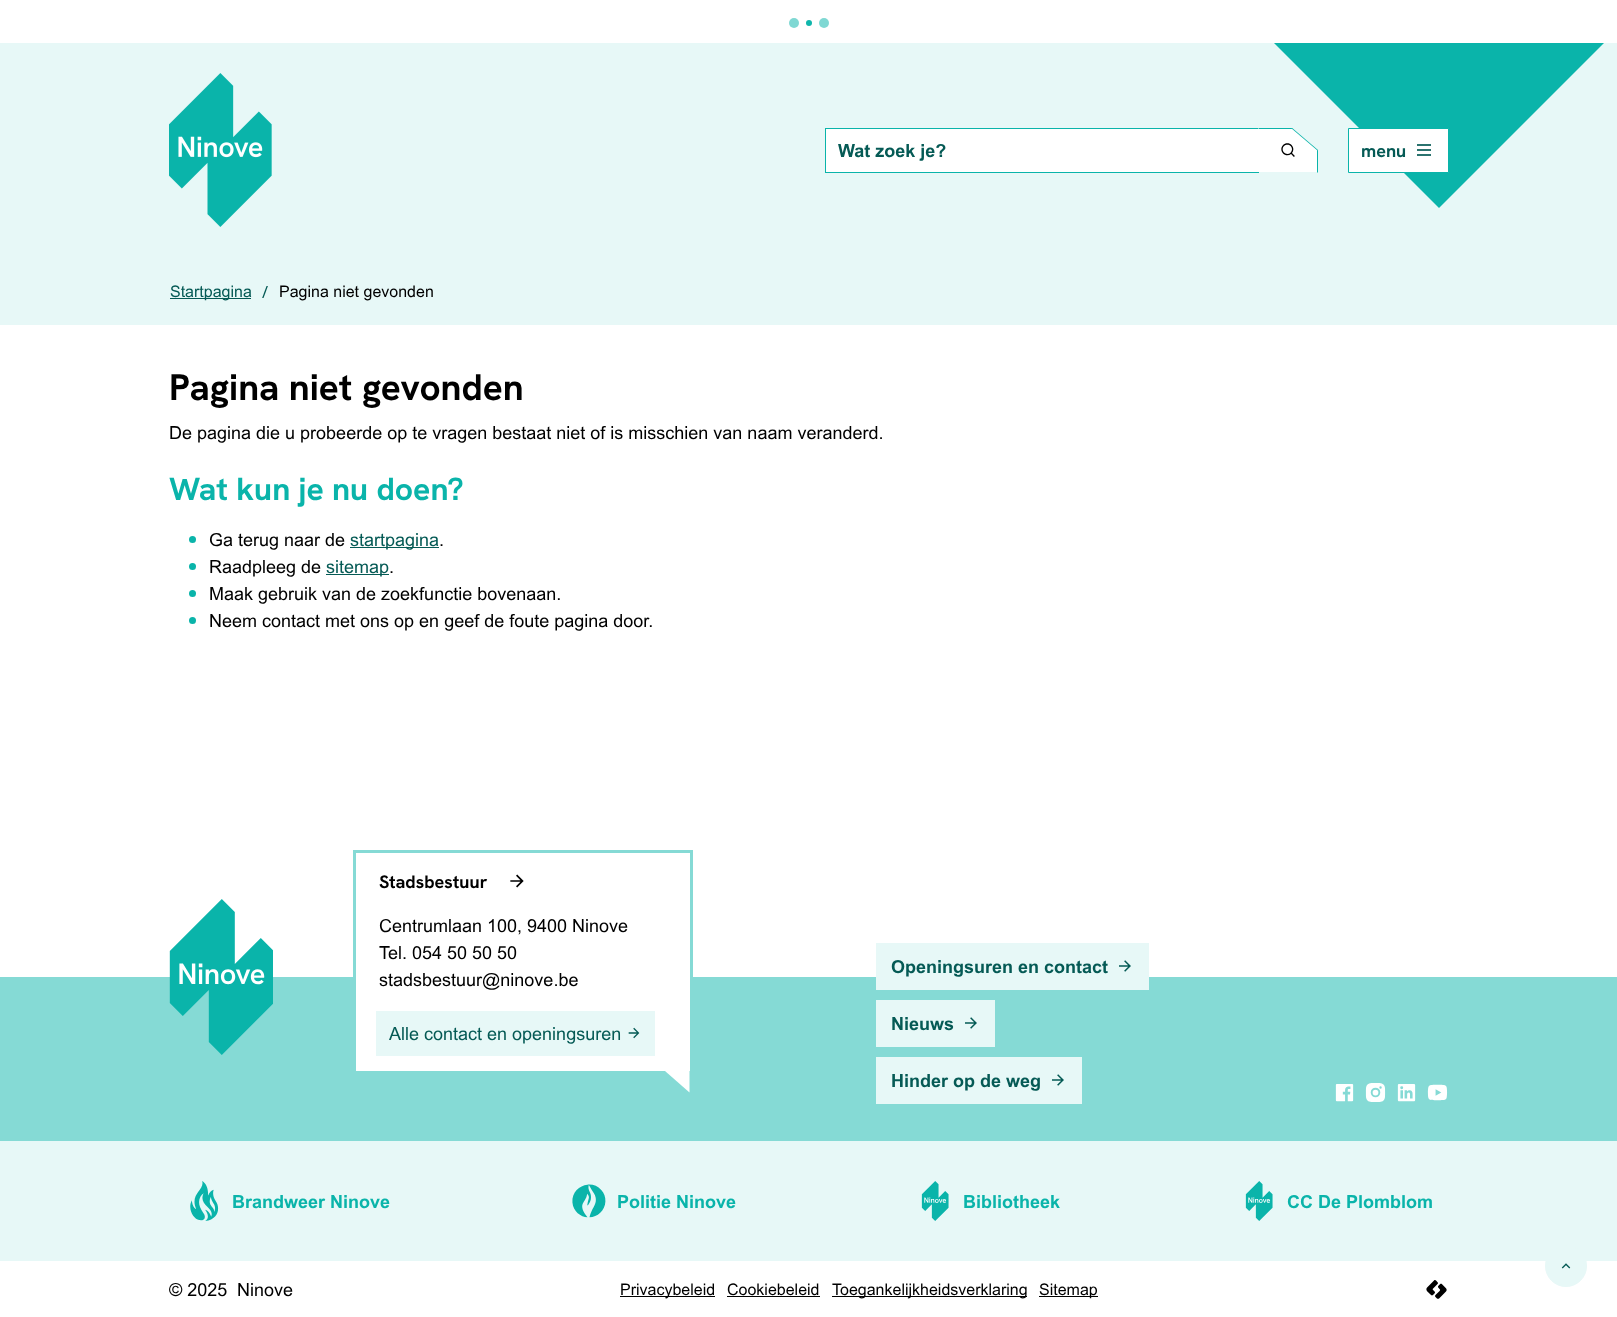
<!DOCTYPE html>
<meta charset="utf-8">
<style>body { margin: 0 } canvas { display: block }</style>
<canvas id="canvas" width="1617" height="1317"></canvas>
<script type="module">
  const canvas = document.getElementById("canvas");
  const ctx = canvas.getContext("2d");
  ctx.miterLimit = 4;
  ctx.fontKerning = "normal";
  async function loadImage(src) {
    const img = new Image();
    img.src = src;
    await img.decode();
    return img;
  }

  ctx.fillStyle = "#ffffff";
  ctx.fillRect(0, 0, 1617, 1317);
  ctx.fillStyle = "#7fd8d3";
  ctx.beginPath();
  ctx.arc(794, 23, 5, 0, Math.PI * 2);
  ctx.fill();
  ctx.fillStyle = "#0fb6ac";
  ctx.beginPath();
  ctx.arc(809, 23, 3, 0, Math.PI * 2);
  ctx.fill();
  ctx.fillStyle = "#7fd8d3";
  ctx.beginPath();
  ctx.arc(824, 23, 5, 0, Math.PI * 2);
  ctx.fill();
  ctx.fillStyle = "#e7f8f7";
  ctx.fillRect(0, 43, 1617, 282);
  ctx.drawImage(await loadImage("img1.png"), 169, 73, 103, 154);
  ctx.fillStyle = "#ffffff";
  ctx.fillRect(826, 129, 432, 43);
  ctx.fillStyle = "#0ab4aa";
  ctx.fillRect(825, 128, 434, 1);
  ctx.fillRect(825, 172, 434, 1);
  ctx.beginPath();
  ctx.moveTo(1274, 43);
  ctx.lineTo(1604, 43);
  ctx.lineTo(1439, 208);
  ctx.closePath();
  ctx.fill();
  ctx.save();
  ctx.beginPath();
  ctx.rect(1258, 128, 60, 45);
  ctx.clip();
  ctx.beginPath();
  ctx.moveTo(1291, 127);
  ctx.lineTo(1318, 150);
  ctx.lineTo(1318, 172);
  ctx.lineTo(1258, 172);
  ctx.lineTo(1258, 127);
  ctx.closePath();
  ctx.fill();
  ctx.restore();
  ctx.fillStyle = "#ffffff";
  ctx.beginPath();
  ctx.moveTo(1318, 172);
  ctx.lineTo(1258, 172);
  ctx.lineTo(1258, 128);
  ctx.lineTo(1291, 128);
  ctx.lineTo(1318, 151);
  ctx.closePath();
  ctx.fill();
  ctx.fillStyle = "#0ab4aa";
  ctx.beginPath();
  ctx.moveTo(1258.5, 129);
  ctx.lineTo(1258.5, 128);
  ctx.lineTo(1291.5, 128);
  ctx.lineTo(1292.5, 129);
  ctx.closePath();
  ctx.moveTo(1318, 172.5);
  ctx.lineTo(1317, 172.5);
  ctx.lineTo(1317, 150);
  ctx.lineTo(1318, 150.5);
  ctx.closePath();
  ctx.fill();
  ctx.drawImage(await loadImage("img2.png"), 1281, 143, 14, 14);
  ctx.fillRect(825, 128, 1, 45);
  ctx.font = "bold 18px Arial";
  ctx.fillStyle = "#055a55";
  ctx.fillText("Wat zoek je?", 838, 157);
  ctx.fillStyle = "#ffffff";
  ctx.beginPath();
  ctx.rect(1348.5, 128.5, 100, 44);
  ctx.fill();
  ctx.strokeStyle = "#0ab4aa";
  ctx.stroke();
  ctx.font = "bold 18px Hanken Grotesk";
  ctx.fillStyle = "#055a55";
  ctx.fillText("menu", 1361, 157);
  ctx.fillStyle = "#2b736f";
  ctx.fillRect(1417, 144, 14, 2);
  ctx.fillRect(1417, 149, 14, 2);
  ctx.fillRect(1417, 154, 14, 2);
  ctx.fillStyle = "#055a55";
  ctx.fillRect(170, 298, 81, 1);
  ctx.font = "16px Arial";
  ctx.fillText("Startpagina", 170, 297);
  ctx.drawImage(await loadImage("img3.png"), 262, 286, 6, 12);
  ctx.fillStyle = "#000000";
  ctx.fillText("Pagina niet gevonden", 279, 297);
  ctx.font = "bold 37px Hanken Grotesk";
  ctx.fillText("Pagina niet gevonden", 169, 400);
  ctx.font = "18px Arial";
  ctx.fillText("De pagina die u probeerde op te vragen bestaat niet of is misschien van naam veranderd.", 169, 439);
  ctx.font = "bold 32px Hanken Grotesk";
  ctx.fillStyle = "#0ab4aa";
  ctx.fillText("Wat kun je nu doen?", 169, 500);
  ctx.beginPath();
  ctx.arc(192.5, 539.5, 3.5, 0, Math.PI * 2);
  ctx.fill();
  ctx.font = "18px Arial";
  ctx.fillStyle = "#000000";
  ctx.fillText("Ga terug naar de", 209, 546);
  ctx.fillStyle = "#055a55";
  ctx.fillRect(350, 547, 89, 1);
  ctx.fillText("startpagina", 350, 546);
  ctx.fillStyle = "#000000";
  ctx.fillText(".", 439, 546);
  ctx.fillStyle = "#0ab4aa";
  ctx.beginPath();
  ctx.arc(192.5, 566.5, 3.5, 0, Math.PI * 2);
  ctx.fill();
  ctx.fillStyle = "#000000";
  ctx.fillText("Raadpleeg de", 209, 573);
  ctx.fillStyle = "#055a55";
  ctx.fillRect(326, 574, 63, 1);
  ctx.fillText("sitemap", 326, 573);
  ctx.fillStyle = "#000000";
  ctx.fillText(".", 389, 573);
  ctx.fillStyle = "#0ab4aa";
  ctx.beginPath();
  ctx.arc(192.5, 593.5, 3.5, 0, Math.PI * 2);
  ctx.fill();
  ctx.fillStyle = "#000000";
  ctx.fillText("Maak gebruik van de zoekfunctie bovenaan.", 209, 600);
  ctx.fillStyle = "#0ab4aa";
  ctx.beginPath();
  ctx.arc(192.5, 620.5, 3.5, 0, Math.PI * 2);
  ctx.fill();
  ctx.fillStyle = "#000000";
  ctx.fillText("Neem contact met ons op en geef de foute pagina door.", 209, 627);
  ctx.fillStyle = "#85dad5";
  ctx.fillRect(0, 977, 1617, 164);
  ctx.drawImage(await loadImage("img4.png"), 169, 899, 104, 156);
  ctx.fillStyle = "#ffffff";
  ctx.fillRect(356, 977, 334, 94);
  ctx.strokeStyle = "#85dad5";
  ctx.lineWidth = 3;
  ctx.strokeRect(354.5, 851.5, 337, 221);
  ctx.font = "bold 18px Hanken Grotesk";
  ctx.fillStyle = "#000000";
  ctx.fillText("Stadsbestuur", 379, 888);
  ctx.drawImage(await loadImage("img5.png"), 510, 874, 14, 14);
  ctx.font = "18px Arial";
  ctx.fillText("Centrumlaan 100,", 379, 932);
  ctx.fillText("9400 Ninove", 527, 932);
  ctx.fillText("Tel. 054 50 50 50", 379, 959);
  ctx.fillText("stadsbestuur@ninove.be", 379, 986);
  ctx.fillStyle = "#e7f8f7";
  ctx.fillRect(376, 1011, 279, 45);
  ctx.fillStyle = "#055a55";
  ctx.fillText("Alle contact en openingsuren", 389, 1040);
  ctx.drawImage(await loadImage("img6.png"), 628, 1027, 12, 12);
  ctx.fillStyle = "#ffffff";
  ctx.beginPath();
  ctx.moveTo(689.5, 1071);
  ctx.lineTo(689.5, 1092.5);
  ctx.lineTo(665, 1071);
  ctx.closePath();
  ctx.fill();
  ctx.fillStyle = "#e7f8f7";
  ctx.fillRect(876, 943, 273, 47);
  ctx.font = "bold 18px Arial";
  ctx.fillStyle = "#055a55";
  ctx.fillText("Openingsuren en contact", 891, 973);
  ctx.drawImage(await loadImage("img7.png"), 1119, 960, 12, 12);
  ctx.fillStyle = "#e7f8f7";
  ctx.fillRect(876, 1000, 119, 47);
  ctx.fillStyle = "#055a55";
  ctx.fillText("Nieuws", 891, 1030);
  ctx.drawImage(await loadImage("img7.png"), 965, 1017, 12, 12);
  ctx.fillStyle = "#e7f8f7";
  ctx.fillRect(876, 1057, 206, 47);
  ctx.fillStyle = "#055a55";
  ctx.fillText("Hinder op de weg", 891, 1087);
  ctx.drawImage(await loadImage("img7.png"), 1052, 1074, 12, 12);
  ctx.drawImage(await loadImage("img8.png"), 1335, 1084, 19, 18);
  ctx.drawImage(await loadImage("img9.png"), 1365, 1083, 21, 19);
  ctx.drawImage(await loadImage("img10.png"), 1397, 1084, 19, 18);
  ctx.drawImage(await loadImage("img11.png"), 1427, 1084, 21, 17);
  ctx.fillStyle = "#e7f8f7";
  ctx.fillRect(0, 1141, 1617, 120);
  ctx.drawImage(await loadImage("img12.png"), 190, 1181, 29, 40);
  ctx.fillStyle = "#0ab4aa";
  ctx.fillText("Brandweer Ninove", 232, 1208);
  ctx.drawImage(await loadImage("img13.png"), 572, 1184, 34, 34);
  ctx.fillText("Politie Ninove", 617, 1208);
  ctx.drawImage(await loadImage("img14.png"), 921, 1181, 28, 40);
  ctx.fillText("Bibliotheek", 963, 1208);
  ctx.drawImage(await loadImage("img15.png"), 1245, 1181, 28, 40);
  ctx.fillText("CC De Plomblom", 1287, 1208);
  ctx.font = "18px Arial";
  ctx.fillStyle = "#000000";
  ctx.fillText("© 2025", 169, 1296);
  ctx.fillText("Ninove", 237, 1296);
  ctx.fillRect(620, 1296, 95, 1);
  ctx.font = "16px Arial";
  ctx.fillText("Privacybeleid", 620, 1295);
  ctx.fillText("Cookiebeleid", 727, 1295);
  ctx.fillRect(727, 1296, 93, 1);
  ctx.fillRect(832, 1296, 195, 1);
  ctx.fillText("Toegankelijkheidsverklaring", 832, 1295);
  ctx.fillRect(1039, 1296, 59, 1);
  ctx.fillText("Sitemap", 1039, 1295);
  ctx.drawImage(await loadImage("img16.png"), 1426, 1280, 21, 19);
  ctx.fillStyle = "#e7f8f7";
  ctx.beginPath();
  ctx.arc(1566, 1266, 20.5, 0, Math.PI * 2);
  ctx.fill();
  ctx.strokeStyle = "#e7f8f7";
  ctx.lineWidth = 1;
  ctx.stroke();
  ctx.drawImage(await loadImage("img17.png"), 1561, 1263, 10, 6);
</script>
